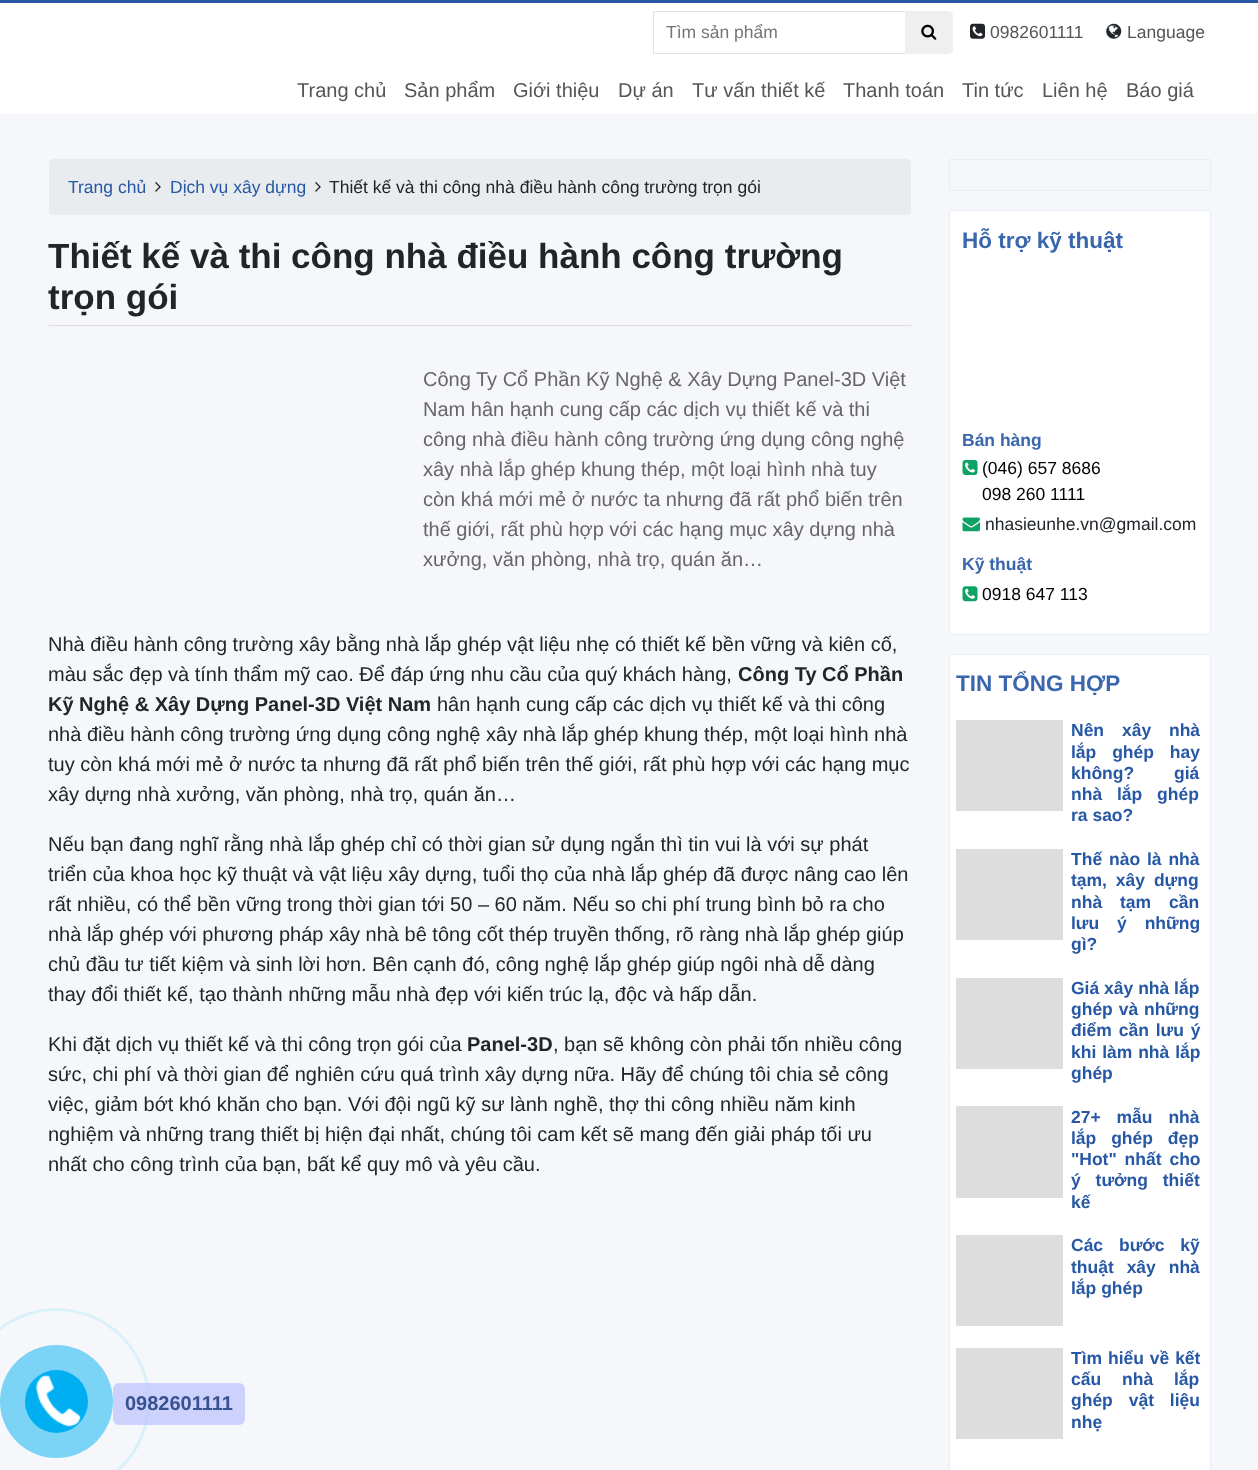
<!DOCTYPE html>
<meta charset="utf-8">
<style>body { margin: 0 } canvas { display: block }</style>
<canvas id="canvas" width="1258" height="1470"></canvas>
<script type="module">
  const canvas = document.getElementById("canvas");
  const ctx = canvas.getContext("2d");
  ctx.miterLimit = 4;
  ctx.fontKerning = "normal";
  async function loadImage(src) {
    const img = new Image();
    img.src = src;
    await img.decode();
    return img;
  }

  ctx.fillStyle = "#f5f7fa";
  ctx.fillRect(0, 0, 1258, 1470);
  ctx.fillStyle = "#ffffff";
  ctx.fillRect(0, 3, 1258, 111);
  ctx.fillStyle = "#2758a5";
  ctx.fillRect(0, 0, 1258, 3);
  ctx.fillStyle = "#f2f2f2";
  ctx.fillRect(0, 114, 1258, 1);
  ctx.strokeStyle = "#e0e2e5";
  ctx.strokeRect(653.5, 11.5, 252, 42);
  ctx.font = "17.5px Liberation Sans";
  ctx.fillStyle = "#757575";
  ctx.fillText("Tìm sản phẩm", 666, 38);
  ctx.fillStyle = "#efefef";
  ctx.beginPath();
  ctx.roundRect(905, 11, 48, 43, [0, 5, 5, 0]);
  ctx.fill();
  ctx.drawImage(await loadImage("img1.png"), 921, 24, 16, 16);
  ctx.drawImage(await loadImage("img2.png"), 970, 23, 15, 16);
  ctx.fillStyle = "#555555";
  ctx.fillText("0982601111", 990, 38);
  ctx.drawImage(await loadImage("img3.png"), 1106, 23, 16, 16);
  ctx.fillText("Language", 1127, 38);
  ctx.font = "20px Liberation Sans";
  ctx.fillText("Trang chủ", 297, 97);
  ctx.fillText("Sản phẩm", 404, 97);
  ctx.fillText("Giới thiệu", 513, 97);
  ctx.fillText("Dự án", 618, 97);
  ctx.fillText("Tư vấn thiết kế", 692, 97);
  ctx.fillText("Thanh toán", 843, 97);
  ctx.fillText("Tin tức", 962, 97);
  ctx.fillText("Liên hệ", 1042, 97);
  ctx.fillText("Báo giá", 1126, 97);
  ctx.fillStyle = "#e9ecef";
  ctx.beginPath();
  ctx.roundRect(49, 159, 862, 56, 5);
  ctx.fill();
  ctx.font = "17.5px Liberation Sans";
  ctx.fillStyle = "#2758a5";
  ctx.fillText("Trang chủ", 68, 193);
  ctx.drawImage(await loadImage("img4.png"), 155, 182, 6, 10);
  ctx.fillText("Dịch vụ xây dựng", 170, 193);
  ctx.drawImage(await loadImage("img4.png"), 315, 182, 6, 10);
  ctx.fillStyle = "#212529";
  ctx.fillText("Thiết kế và thi công nhà điều hành công trường trọn gói", 329, 193);
  ctx.fillStyle = "#dddddd";
  ctx.fillRect(49, 325, 862, 1);
  ctx.font = "bold 35px Liberation Sans";
  ctx.fillStyle = "#212529";
  ctx.fillText("Thiết kế và thi công nhà điều hành công trường", 48, 268);
  ctx.fillText("trọn gói", 48, 309);
  ctx.font = "20px Liberation Sans";
  ctx.fillStyle = "#666666";
  ctx.fillText("Công Ty Cổ Phần Kỹ Nghệ & Xây Dựng Panel-3D Việt", 423, 386);
  ctx.fillText("Nam hân hạnh cung cấp các dịch vụ thiết kế và thi", 423, 416);
  ctx.fillText("công nhà điều hành công trường ứng dụng công nghệ", 423, 446);
  ctx.fillText("xây nhà lắp ghép khung thép, một loại hình nhà tuy", 423, 476);
  ctx.fillText("còn khá mới mẻ ở nước ta nhưng đã rất phổ biến trên", 423, 506);
  ctx.fillText("thế giới, rất phù hợp với các hạng mục xây dựng nhà", 423, 536);
  ctx.fillText("xưởng, văn phòng, nhà trọ, quán ăn…", 423, 566);
  ctx.fillStyle = "#212529";
  ctx.fillText("Nhà điều hành công trường xây bằng nhà lắp ghép vật liệu nhẹ có thiết kế bền vững và kiên cố,", 48, 651);
  ctx.fillText("màu sắc đẹp và tính thẩm mỹ cao. Để đáp ứng nhu cầu của quý khách hàng,", 48, 681);
  ctx.font = "bold 20px Liberation Sans";
  ctx.fillText("Công Ty Cổ Phần", 738, 681);
  ctx.fillText("Kỹ Nghệ & Xây Dựng Panel-3D Việt Nam", 48, 711);
  ctx.font = "20px Liberation Sans";
  ctx.fillText("hân hạnh cung cấp các dịch vụ thiết kế và thi công", 437, 711);
  ctx.fillText("nhà điều hành công trường ứng dụng công nghệ xây nhà lắp ghép khung thép, một loại hình nhà", 48, 741);
  ctx.fillText("tuy còn khá mới mẻ ở nước ta nhưng đã rất phổ biến trên thế giới, rất phù hợp với các hạng mục", 48, 771);
  ctx.fillText("xây dựng nhà xưởng, văn phòng, nhà trọ, quán ăn…", 48, 801);
  ctx.fillText("Nếu bạn đang nghĩ rằng nhà lắp ghép chỉ có thời gian sử dụng ngắn thì tin vui là với sự phát", 48, 851);
  ctx.fillText("triển của khoa học kỹ thuật và vật liệu xây dựng, tuổi thọ của nhà lắp ghép đã được nâng cao lên", 48, 881);
  ctx.fillText("rất nhiều, có thể bền vững trong thời gian tới 50 – 60 năm. Nếu so chi phí trung bình bỏ ra cho", 48, 911);
  ctx.fillText("nhà lắp ghép với phương pháp xây nhà bê tông cốt thép truyền thống, rõ ràng nhà lắp ghép giúp", 48, 941);
  ctx.fillText("chủ đầu tư tiết kiệm và sinh lời hơn. Bên cạnh đó, công nghệ lắp ghép giúp ngôi nhà dễ dàng", 48, 971);
  ctx.fillText("thay đổi thiết kế, tạo thành những mẫu nhà đẹp với kiến trúc lạ, độc và hấp dẫn.", 48, 1001);
  ctx.fillText("Khi đặt dịch vụ thiết kế và thi công trọn gói của", 48, 1051);
  ctx.font = "bold 20px Liberation Sans";
  ctx.fillText("Panel-3D", 467, 1051);
  ctx.font = "20px Liberation Sans";
  ctx.fillText(", bạn sẽ không còn phải tốn nhiều công", 553, 1051);
  ctx.fillText("sức, chi phí và thời gian để nghiên cứu quá trình xây dựng nữa. Hãy để chúng tôi chia sẻ công", 48, 1081);
  ctx.fillText("việc, giảm bớt khó khăn cho bạn. Với đội ngũ kỹ sư lành nghề, thợ thi công nhiều năm kinh", 48, 1111);
  ctx.fillText("nghiệm và những trang thiết bị hiện đại nhất, chúng tôi cam kết sẽ mang đến giải pháp tối ưu", 48, 1141);
  ctx.fillText("nhất cho công trình của bạn, bất kể quy mô và yêu cầu.", 48, 1171);
  ctx.strokeStyle = "#e9eef4";
  ctx.strokeRect(949.5, 159.5, 261, 31);
  ctx.fillStyle = "#ffffff";
  ctx.beginPath();
  ctx.rect(949.5, 210.5, 261, 424);
  ctx.fill();
  ctx.stroke();
  ctx.font = "bold 22.5px Liberation Sans";
  ctx.fillStyle = "#3a66ad";
  ctx.fillText("Hỗ trợ kỹ thuật", 962, 248);
  ctx.font = "bold 17.5px Liberation Sans";
  ctx.fillText("Bán hàng", 962, 446);
  ctx.drawImage(await loadImage("img5.png"), 962, 460, 16, 15);
  ctx.font = "17.5px Liberation Sans";
  ctx.fillStyle = "#000000";
  ctx.fillText("(046) 657 8686", 982, 474);
  ctx.fillText("098 260 1111", 982, 500);
  ctx.drawImage(await loadImage("img6.png"), 962, 517, 18, 15);
  ctx.fillStyle = "#212529";
  ctx.fillText("nhasieunhe.vn@gmail.com", 985, 530);
  ctx.font = "bold 17.5px Liberation Sans";
  ctx.fillStyle = "#3a66ad";
  ctx.fillText("Kỹ thuật", 962, 570);
  ctx.drawImage(await loadImage("img7.png"), 962, 586, 16, 16);
  ctx.font = "17.5px Liberation Sans";
  ctx.fillStyle = "#000000";
  ctx.fillText("0918 647 113", 982, 600);
  ctx.fillStyle = "#ffffff";
  ctx.beginPath();
  ctx.rect(949.5, 654.5, 261, 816);
  ctx.fill();
  ctx.stroke();
  ctx.font = "bold 22.5px Liberation Sans";
  ctx.fillStyle = "#3a66ad";
  ctx.fillText("TIN TỔNG HỢP", 956, 691);
  ctx.fillStyle = "#dddddd";
  ctx.fillRect(956, 720, 107, 91);
  ctx.wordSpacing = "13px";
  ctx.font = "bold 17.5px Liberation Sans";
  ctx.fillStyle = "#2758a5";
  ctx.fillText("Nên xây nhà", 1071, 736);
  ctx.wordSpacing = "11px";
  ctx.fillText("lắp ghép hay", 1071, 758);
  ctx.wordSpacing = "35px";
  ctx.fillText("không? giá", 1071, 779);
  ctx.wordSpacing = "10px";
  ctx.fillText("nhà lắp ghép", 1071, 800);
  ctx.wordSpacing = "0px";
  ctx.fillText("ra sao?", 1071, 821);
  ctx.fillStyle = "#dddddd";
  ctx.fillRect(956, 849, 107, 91);
  ctx.wordSpacing = "2px";
  ctx.fillStyle = "#2758a5";
  ctx.fillText("Thế nào là nhà", 1071, 865);
  ctx.wordSpacing = "4px";
  ctx.fillText("tạm, xây dựng", 1071, 886);
  ctx.wordSpacing = "13px";
  ctx.fillText("nhà tạm cần", 1071, 908);
  ctx.fillText("lưu ý những", 1071, 929);
  ctx.wordSpacing = "0px";
  ctx.fillText("gì?", 1071, 950);
  ctx.fillStyle = "#dddddd";
  ctx.fillRect(956, 978, 107, 91);
  ctx.fillStyle = "#2758a5";
  ctx.fillText("Giá xây nhà lắp", 1071, 994);
  ctx.wordSpacing = "1px";
  ctx.fillText("ghép và những", 1071, 1015);
  ctx.wordSpacing = "2px";
  ctx.fillText("điểm cần lưu ý", 1071, 1036);
  ctx.wordSpacing = "1px";
  ctx.fillText("khi làm nhà lắp", 1071, 1058);
  ctx.wordSpacing = "0px";
  ctx.fillText("ghép", 1071, 1079);
  ctx.fillStyle = "#dddddd";
  ctx.fillRect(956, 1106, 107, 92);
  ctx.wordSpacing = "11px";
  ctx.fillStyle = "#2758a5";
  ctx.fillText("27+ mẫu nhà", 1071, 1123);
  ctx.wordSpacing = "10px";
  ctx.fillText("lắp ghép đẹp", 1071, 1144);
  ctx.wordSpacing = "3px";
  ctx.fillText("\"Hot\" nhất cho", 1071, 1165);
  ctx.wordSpacing = "10px";
  ctx.fillText("ý tưởng thiết", 1071, 1186);
  ctx.wordSpacing = "0px";
  ctx.fillText("kế", 1071, 1208);
  ctx.fillStyle = "#dddddd";
  ctx.fillRect(956, 1235, 107, 91);
  ctx.wordSpacing = "11px";
  ctx.fillStyle = "#2758a5";
  ctx.fillText("Các bước kỹ", 1071, 1251);
  ctx.wordSpacing = "8px";
  ctx.fillText("thuật xây nhà", 1071, 1273);
  ctx.wordSpacing = "0px";
  ctx.fillText("lắp ghép", 1071, 1294);
  ctx.fillStyle = "#dddddd";
  ctx.fillRect(956, 1348, 107, 91);
  ctx.wordSpacing = "1px";
  ctx.fillStyle = "#2758a5";
  ctx.fillText("Tìm hiểu về kết", 1071, 1364);
  ctx.wordSpacing = "16px";
  ctx.fillText("cấu nhà lắp", 1071, 1385);
  ctx.wordSpacing = "11px";
  ctx.fillText("ghép vật liệu", 1071, 1406);
  ctx.wordSpacing = "0px";
  ctx.fillText("nhẹ", 1071, 1428);
  ctx.beginPath();
  ctx.arc(56.5, 1401.5, 92, 0, Math.PI * 2);
  ctx.strokeStyle = "#daf1fb";
  ctx.lineWidth = 3;
  ctx.stroke();
  ctx.fillStyle = "#7bd3f6";
  ctx.beginPath();
  ctx.arc(56.5, 1401.5, 56.5, 0, Math.PI * 2);
  ctx.fill();
  ctx.fillStyle = "#00aff2";
  ctx.beginPath();
  ctx.arc(56.5, 1401.5, 31.5, 0, Math.PI * 2);
  ctx.fill();
  ctx.drawImage(await loadImage("img8.png"), 36, 1375, 45, 52);
  ctx.fillStyle = "rgba(183, 190, 255, 0.65)";
  ctx.beginPath();
  ctx.roundRect(113, 1383, 132, 42, 6);
  ctx.fill();
  ctx.font = "bold 20px Liberation Sans";
  ctx.fillStyle = "#385291";
  ctx.fillText("0982601111", 125, 1410);
</script>
